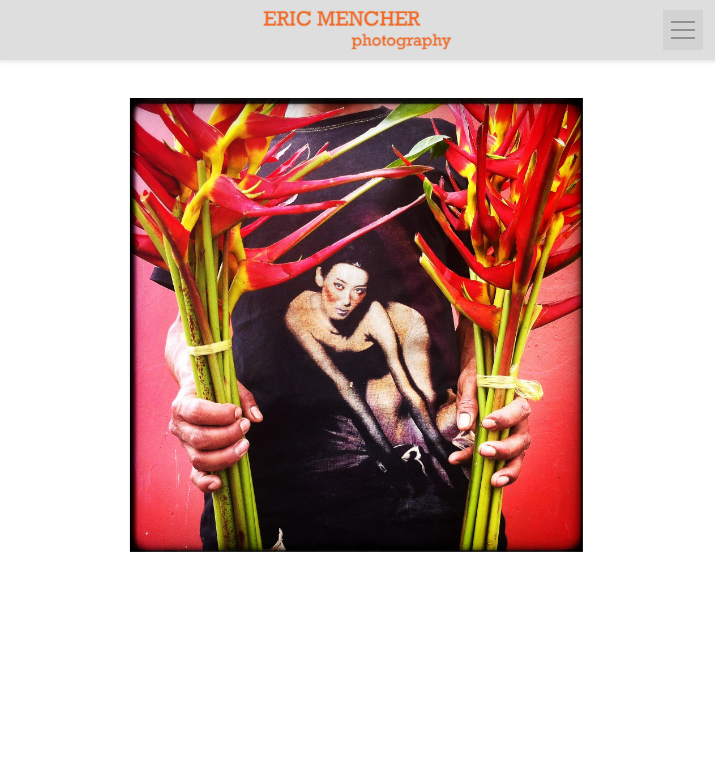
import math
import cairo


def round_path(ctx, x, y, w, h, r):
	ctx.new_sub_path()
	for i, (u, v) in enumerate([(x + w - r, y + h - r), (x + r, y + h - r), (x + r, y + r), (x + w - r, y + r)]):
		ctx.arc(u, v, r, i * math.pi / 2, (i + 1) * math.pi / 2)
	ctx.close_path()

def blur_box(ctx, x, y, w, h, r, blur, alpha):
	ctx.push_group_with_content(cairo.CONTENT_ALPHA)
	ctx.set_operator(cairo.OPERATOR_SOURCE)
	for i in range(15, -16, -2):
		e = blur * i / 6
		if min(w, h) + 2 * e > 0:
			ctx.set_source_rgba(0, 0, 0, alpha * math.erfc((i - 1) / 8.5) / 2)
			round_path(ctx, x - e, y - e, w + 2 * e, h + 2 * e, max(0, min(r + e + blur * .6, min(w, h) / 2 + e)))
			ctx.fill()
	ctx.mask(ctx.pop_group())

def paste(ctx, path, x, y, w, h):
	ctx.save()
	ctx.set_source_surface(cairo.ImageSurface.create_from_png(path), x, y)
	ctx.rectangle(x, y, w, h)
	ctx.fill()
	ctx.restore()

def draw(ctx):
	ctx.set_source_rgb(1, 1, 1)
	ctx.paint()
	ctx.set_source_rgb(0, 0, 0)
	blur_box(ctx, 0, 2, 715, 60, 0, 2, 0.1)
	ctx.set_source_rgb(0.871, 0.871, 0.871)
	ctx.rectangle(0, 0, 715, 60)
	ctx.fill()
	paste(ctx, 'media/1.png', 263, 10, 189, 40)
	ctx.set_source_rgb(0.827, 0.827, 0.827)
	ctx.rectangle(663, 10, 40, 40)
	ctx.fill()
	ctx.set_source_rgb(0.569, 0.569, 0.569)
	ctx.rectangle(671, 21, 24, 2)
	ctx.rectangle(671, 29, 24, 2)
	ctx.rectangle(671, 37, 24, 2)
	ctx.fill()
	paste(ctx, 'media/2.png', 129, 98, 454, 454)


surface = cairo.ImageSurface(cairo.FORMAT_RGB24, 715, 763)
ctx = cairo.Context(surface)
options = cairo.FontOptions()
options.set_hint_metrics(cairo.HINT_METRICS_OFF)
options.set_hint_style(cairo.HINT_STYLE_NONE)
ctx.set_font_options(options)
ctx.set_miter_limit(4)
draw(ctx)
surface.write_to_png('image.png')
